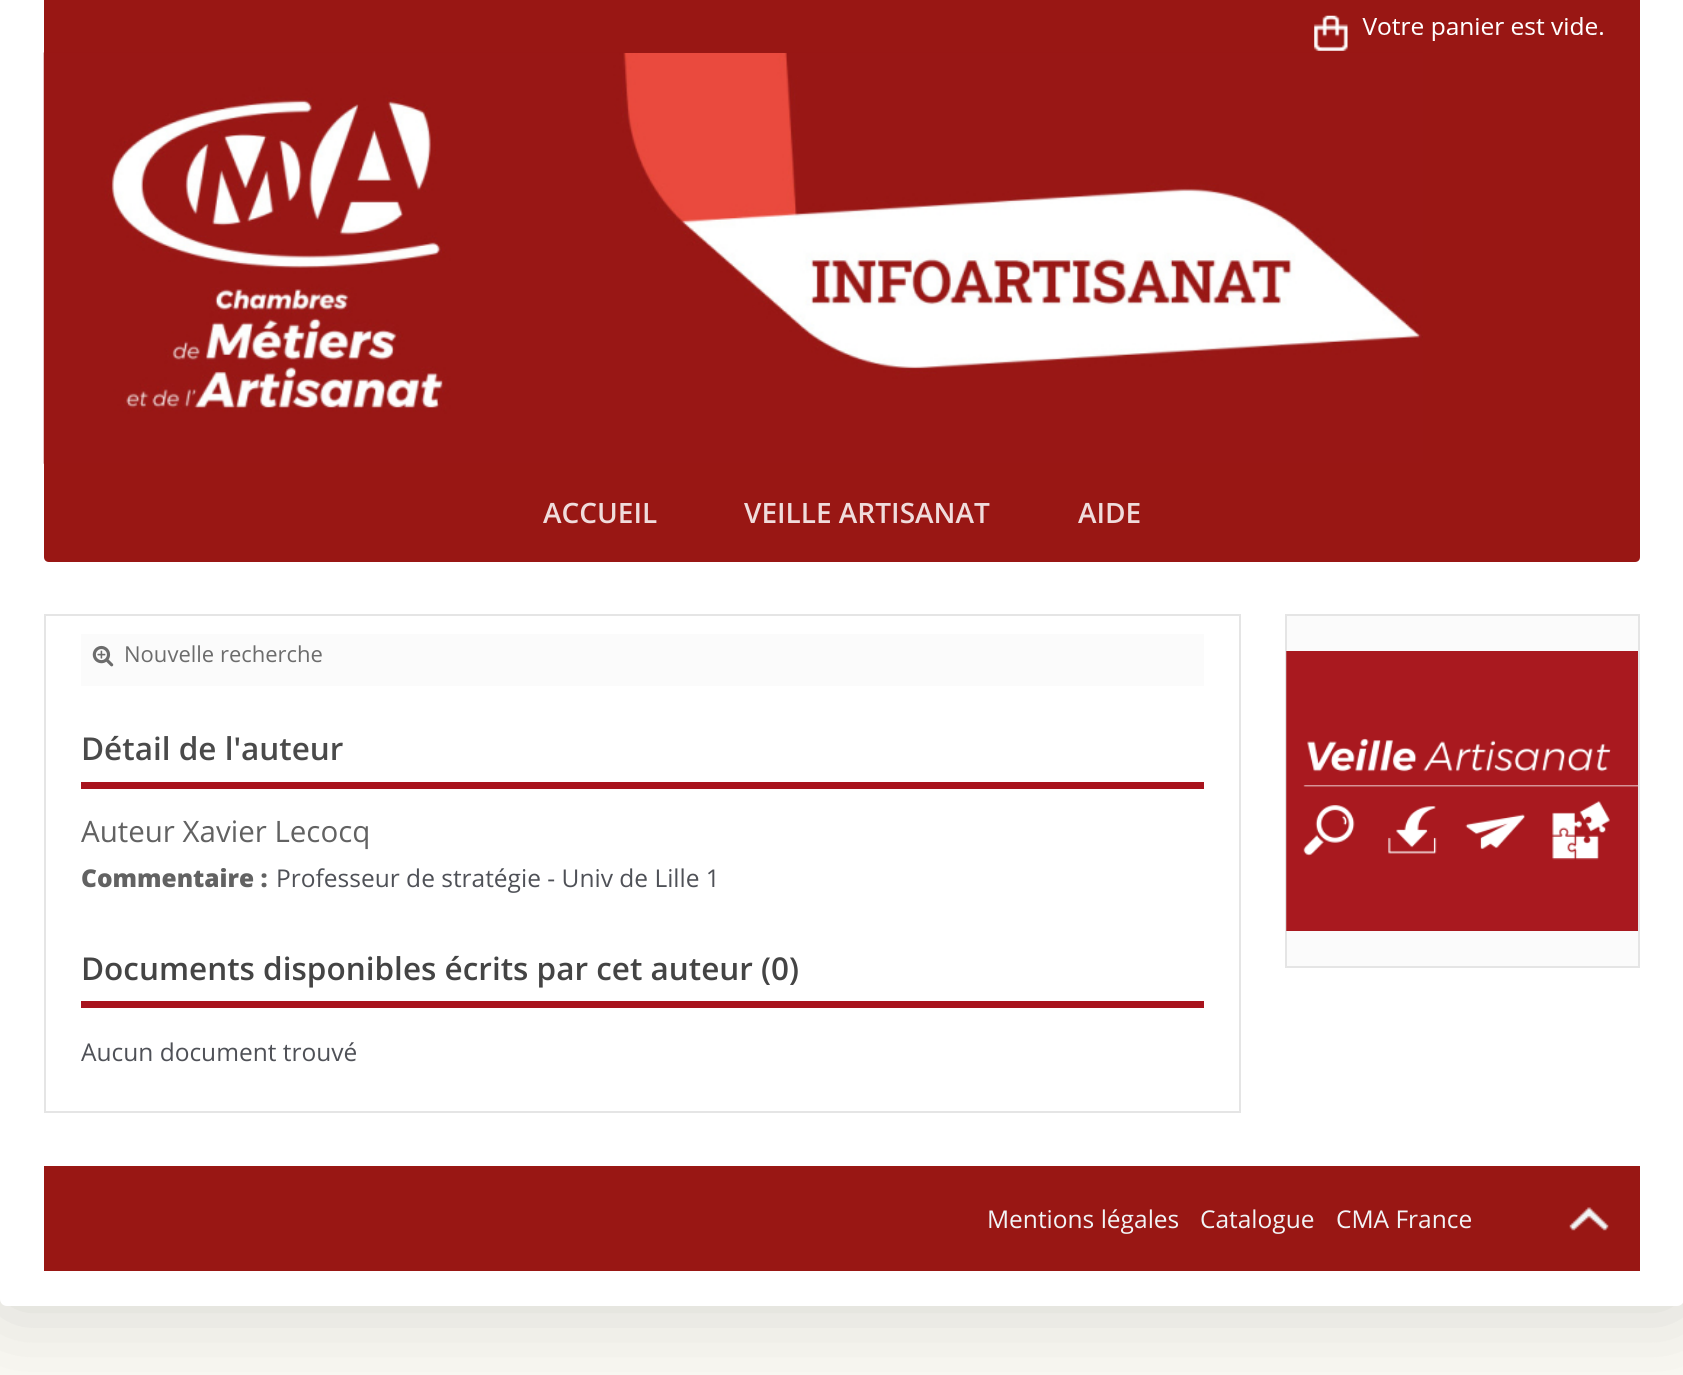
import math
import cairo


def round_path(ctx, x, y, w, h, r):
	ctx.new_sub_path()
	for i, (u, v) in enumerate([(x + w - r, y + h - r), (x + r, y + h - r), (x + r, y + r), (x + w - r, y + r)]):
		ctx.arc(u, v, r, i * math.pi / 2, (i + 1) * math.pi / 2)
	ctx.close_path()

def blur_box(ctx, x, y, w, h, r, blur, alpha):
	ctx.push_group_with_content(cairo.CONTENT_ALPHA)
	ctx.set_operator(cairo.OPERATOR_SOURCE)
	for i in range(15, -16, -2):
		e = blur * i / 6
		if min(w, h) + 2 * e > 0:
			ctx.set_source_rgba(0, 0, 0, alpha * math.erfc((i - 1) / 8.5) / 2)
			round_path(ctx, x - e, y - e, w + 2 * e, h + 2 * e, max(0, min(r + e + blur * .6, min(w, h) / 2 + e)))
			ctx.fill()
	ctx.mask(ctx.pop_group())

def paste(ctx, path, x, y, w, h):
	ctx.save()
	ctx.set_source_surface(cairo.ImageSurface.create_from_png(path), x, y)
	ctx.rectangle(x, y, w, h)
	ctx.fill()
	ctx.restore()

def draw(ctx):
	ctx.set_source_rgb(0.973, 0.969, 0.949)
	ctx.paint()
	ctx.set_source_rgb(0, 0, 0)
	blur_box(ctx, 0, 0, 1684, 1306, 7, 44, 0.15)
	ctx.set_source_rgb(1, 1, 1)
	ctx.new_path()
	ctx.move_to(0, 0)
	ctx.line_to(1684, 0)
	ctx.line_to(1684, 1299)
	ctx.curve_to(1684, 1303, 1681, 1306, 1677, 1306)
	ctx.line_to(7, 1306)
	ctx.curve_to(3, 1306, 0, 1303, 0, 1299)
	ctx.close_path()
	ctx.fill()
	ctx.set_source_rgb(0.6, 0.09, 0.082)
	ctx.new_path()
	ctx.move_to(44, 0)
	ctx.line_to(1640, 0)
	ctx.line_to(1640, 557)
	ctx.curve_to(1640, 560, 1638, 562, 1635, 562)
	ctx.line_to(49, 562)
	ctx.curve_to(46, 562, 44, 560, 44, 557)
	ctx.close_path()
	ctx.fill()
	paste(ctx, 'media/2.png', 43, 52, 1380, 412)
	ctx.rectangle(623, 52, 164, 1)
	ctx.fill()
	paste(ctx, 'media/1.png', 1314, 15, 289, 36)
	ctx.select_font_face('Open Sans SemiBold')
	ctx.set_font_size(28)
	ctx.set_source_rgb(0.941, 0.863, 0.863)
	for x, y, s in [
		(543, 523, 'ACCUEIL'),
		(744, 523, 'VEILLE ARTISANAT'),
		(1078, 523, 'AIDE'),
	]:
		ctx.move_to(x, y)
		ctx.show_text(s)
	ctx.rectangle(45, 615, 1195, 497)
	ctx.set_source_rgb(0.898, 0.898, 0.898)
	ctx.stroke()
	ctx.set_source_rgb(0.984, 0.984, 0.984)
	ctx.rectangle(81, 634, 1123, 52)
	ctx.fill()
	paste(ctx, 'media/3.png', 92, 645, 22, 22)
	ctx.select_font_face('Open Sans')
	ctx.set_font_size(22)
	ctx.set_source_rgb(0.424, 0.424, 0.424)
	ctx.move_to(124, 662)
	ctx.show_text('Nouvelle recherche')
	ctx.set_source_rgb(0.659, 0.075, 0.114)
	ctx.rectangle(81, 782, 1123, 7)
	ctx.fill()
	ctx.select_font_face('Open Sans SemiBold')
	ctx.set_font_size(31.5)
	ctx.set_source_rgb(0.29, 0.29, 0.29)
	ctx.move_to(81, 760)
	ctx.show_text('Détail de l\'auteur')
	ctx.select_font_face('Open Sans')
	ctx.set_font_size(29.5)
	ctx.set_source_rgb(0.384, 0.384, 0.384)
	ctx.move_to(81, 842)
	ctx.show_text('Auteur Xavier Lecocq')
	ctx.select_font_face('Open Sans ExtraBold')
	ctx.set_font_size(24.5)
	ctx.move_to(81, 887)
	ctx.show_text('Commentaire :')
	ctx.select_font_face('Open Sans')
	ctx.set_source_rgb(0.31, 0.318, 0.341)
	ctx.move_to(276, 887)
	ctx.show_text('Professeur de stratégie - Univ de Lille 1')
	ctx.set_source_rgb(0.659, 0.075, 0.114)
	ctx.rectangle(81, 1001, 1123, 7)
	ctx.fill()
	ctx.select_font_face('Open Sans SemiBold')
	ctx.set_font_size(31.5)
	ctx.set_source_rgb(0.267, 0.267, 0.267)
	ctx.move_to(81, 980)
	ctx.show_text('Documents disponibles écrits par cet auteur (0)')
	ctx.select_font_face('Open Sans')
	ctx.set_font_size(24.5)
	ctx.set_source_rgb(0.31, 0.318, 0.341)
	ctx.move_to(81, 1061)
	ctx.show_text('Aucun document trouvé')
	ctx.set_source_rgb(0.984, 0.984, 0.984)
	ctx.rectangle(1286, 615, 353, 352)
	ctx.fill_preserve()
	ctx.set_source_rgb(0.898, 0.898, 0.898)
	ctx.stroke()
	paste(ctx, 'media/4.png', 1286, 651, 352, 280)
	ctx.set_source_rgb(0.6, 0.09, 0.082)
	ctx.rectangle(44, 1166, 1596, 105)
	ctx.fill()
	ctx.set_source_rgb(0.949, 0.957, 0.961)
	for x, y, s in [
		(987, 1228, 'Mentions légales'),
		(1200, 1228, 'Catalogue'),
		(1336, 1228, 'CMA France'),
	]:
		ctx.move_to(x, y)
		ctx.show_text(s)
	paste(ctx, 'media/5.png', 1569, 1207, 40, 24)


surface = cairo.ImageSurface(cairo.FORMAT_RGB24, 1683, 1375)
ctx = cairo.Context(surface)
options = cairo.FontOptions()
options.set_hint_metrics(cairo.HINT_METRICS_OFF)
options.set_hint_style(cairo.HINT_STYLE_NONE)
ctx.set_font_options(options)
ctx.set_miter_limit(4)
draw(ctx)
surface.write_to_png('image.png')
